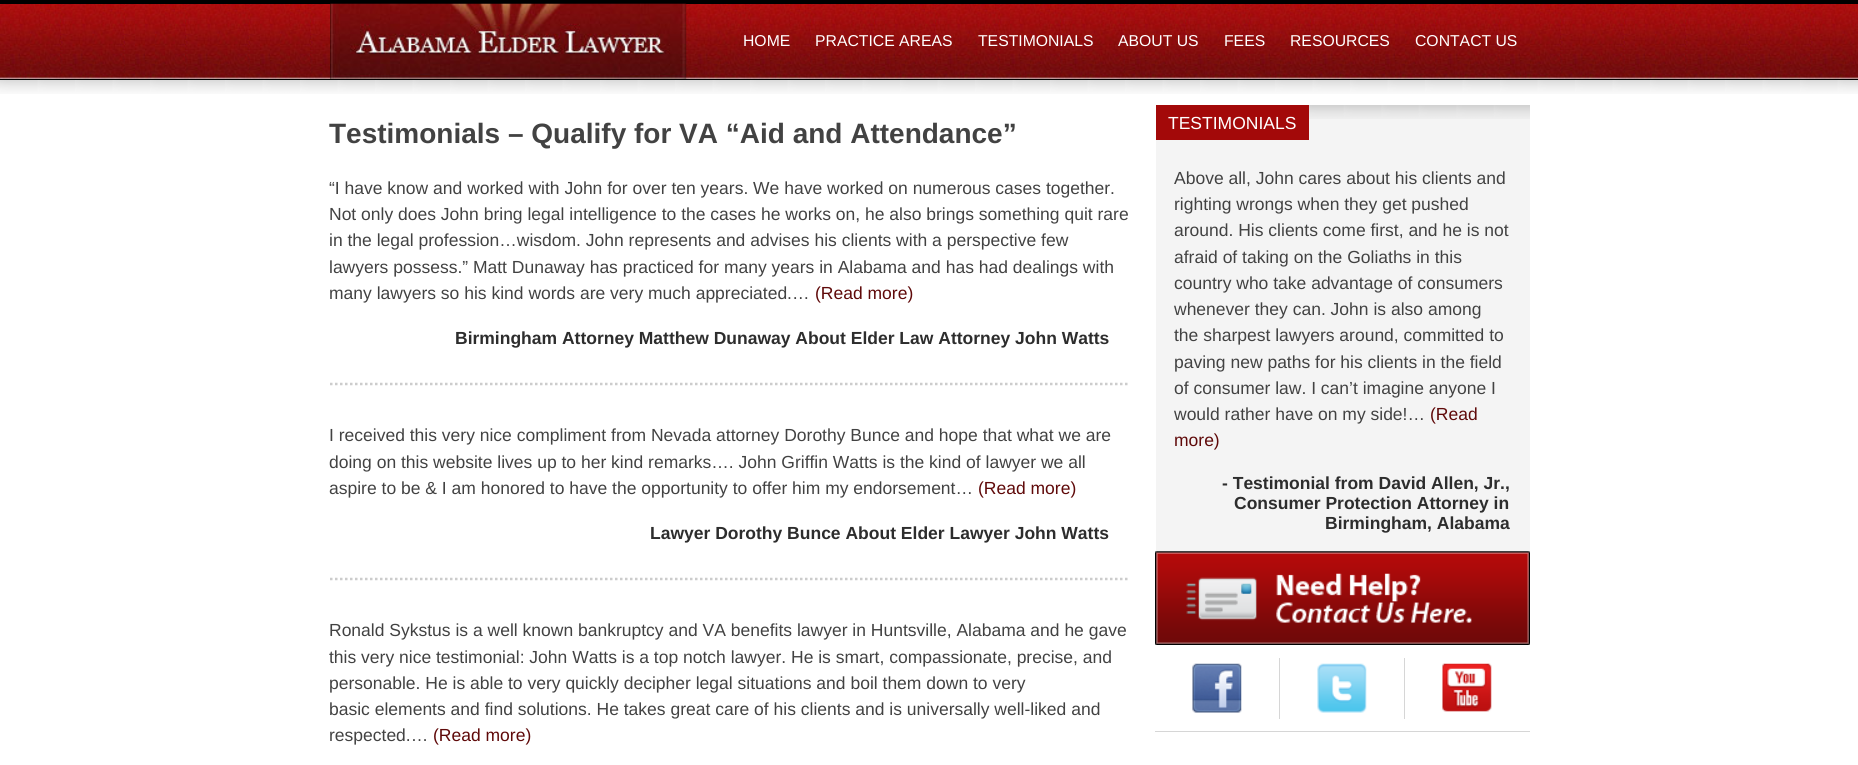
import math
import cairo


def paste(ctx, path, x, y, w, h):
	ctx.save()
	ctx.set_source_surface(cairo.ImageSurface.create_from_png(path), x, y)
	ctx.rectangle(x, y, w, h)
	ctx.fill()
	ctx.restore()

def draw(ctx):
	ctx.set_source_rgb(1, 1, 1)
	ctx.paint()
	paste(ctx, 'media/1.png', 0, 4, 1858, 75)
	ctx.set_source_rgb(0, 0, 0)
	ctx.rectangle(0, 0, 1858, 4)
	ctx.fill()
	ctx.rectangle(0, 79, 1858, 1)
	ctx.fill()
	paste(ctx, 'media/2.png', 330, 3, 357, 76)
	ctx.select_font_face('Liberation Sans')
	ctx.set_font_size(15.75)
	ctx.set_source_rgb(1, 1, 1)
	for x, y, s in [
		(743, 46, 'HOME'),
		(815, 46, 'PRACTICE AREAS'),
		(978, 46, 'TESTIMONIALS'),
		(1118, 46, 'ABOUT US'),
		(1224, 46, 'FEES'),
		(1290, 46, 'RESOURCES'),
		(1415, 46, 'CONTACT US'),
	]:
		ctx.move_to(x, y)
		ctx.show_text(s)
	paste(ctx, 'media/3.png', 0, 80, 1858, 14)
	ctx.select_font_face('Liberation Sans', cairo.FONT_SLANT_NORMAL, cairo.FONT_WEIGHT_BOLD)
	ctx.set_font_size(28)
	ctx.set_source_rgb(0.259, 0.259, 0.259)
	ctx.move_to(329, 143)
	ctx.show_text('Testimonials – Qualify for VA “Aid and Attendance”')
	ctx.select_font_face('Liberation Sans')
	ctx.set_font_size(17.5)
	for x, y, s in [
		(329, 194, '“I have know and worked with John for over ten years. We have worked on numerous cases together.'),
		(329, 220, 'Not only does John bring legal intelligence to the cases he works on, he also brings something quit rare'),
		(329, 246, 'in the legal profession…wisdom. John represents and advises his clients with a perspective few'),
		(329, 273, 'lawyers possess.” Matt Dunaway has practiced for many years in Alabama and has had dealings with'),
		(329, 299, 'many lawyers so his kind words are very much appreciated.…'),
	]:
		ctx.move_to(x, y)
		ctx.show_text(s)
	ctx.set_source_rgb(0.373, 0.039, 0.039)
	ctx.move_to(815, 299)
	ctx.show_text('(Read more)')
	ctx.select_font_face('Liberation Sans', cairo.FONT_SLANT_NORMAL, cairo.FONT_WEIGHT_BOLD)
	ctx.set_source_rgb(0.176, 0.176, 0.176)
	ctx.move_to(455, 344)
	ctx.show_text('Birmingham Attorney Matthew Dunaway About Elder Law Attorney John Watts')
	ctx.new_path()
	ctx.move_to(330, 384)
	ctx.line_to(1130, 384)
	ctx.set_source_rgb(0.8, 0.8, 0.8)
	ctx.set_line_width(2.5)
	ctx.set_dash([2.5, 2.5])
	ctx.stroke()
	ctx.select_font_face('Liberation Sans')
	ctx.set_source_rgb(0.259, 0.259, 0.259)
	for x, y, s in [
		(329, 441, 'I received this very nice compliment from Nevada attorney Dorothy Bunce and hope that what we are'),
		(329, 468, 'doing on this website lives up to her kind remarks…. John Griffin Watts is the kind of lawyer we all'),
		(329, 494, 'aspire to be & I am honored to have the opportunity to offer him my endorsement…'),
	]:
		ctx.move_to(x, y)
		ctx.show_text(s)
	ctx.set_source_rgb(0.373, 0.039, 0.039)
	ctx.move_to(978, 494)
	ctx.show_text('(Read more)')
	ctx.select_font_face('Liberation Sans', cairo.FONT_SLANT_NORMAL, cairo.FONT_WEIGHT_BOLD)
	ctx.set_source_rgb(0.176, 0.176, 0.176)
	ctx.move_to(650, 539)
	ctx.show_text('Lawyer Dorothy Bunce About Elder Lawyer John Watts')
	ctx.new_path()
	ctx.move_to(330, 579)
	ctx.line_to(1130, 579)
	ctx.set_source_rgb(0.8, 0.8, 0.8)
	ctx.stroke()
	ctx.select_font_face('Liberation Sans')
	ctx.set_source_rgb(0.259, 0.259, 0.259)
	for x, y, s in [
		(329, 636, 'Ronald Sykstus is a well known bankruptcy and VA benefits lawyer in Huntsville, Alabama and he gave'),
		(329, 663, 'this very nice testimonial: John Watts is a top notch lawyer. He is smart, compassionate, precise, and'),
		(329, 689, 'personable. He is able to very quickly decipher legal situations and boil them down to very'),
		(329, 715, 'basic elements and find solutions. He takes great care of his clients and is universally well-liked and'),
		(329, 741, 'respected.…'),
	]:
		ctx.move_to(x, y)
		ctx.show_text(s)
	ctx.set_source_rgb(0.373, 0.039, 0.039)
	ctx.move_to(433, 741)
	ctx.show_text('(Read more)')
	ctx.set_source_rgb(0.957, 0.957, 0.957)
	ctx.rectangle(1156, 105, 374, 446)
	ctx.fill()
	paste(ctx, 'media/4.png', 1309, 105, 221, 14)
	ctx.set_source_rgb(0.639, 0.039, 0.039)
	ctx.rectangle(1156, 105, 153, 35)
	ctx.fill()
	ctx.set_source_rgb(1, 1, 1)
	ctx.move_to(1168, 129)
	ctx.show_text('TESTIMONIALS')
	ctx.set_source_rgb(0.259, 0.259, 0.259)
	for x, y, s in [
		(1174, 184, 'Above all, John cares about his clients and'),
		(1174, 210, 'righting wrongs when they get pushed'),
		(1174, 236, 'around. His clients come first, and he is not'),
		(1174, 263, 'afraid of taking on the Goliaths in this'),
		(1174, 289, 'country who take advantage of consumers'),
		(1174, 315, 'whenever they can. John is also among'),
		(1174, 341, 'the sharpest lawyers around, committed to'),
		(1174, 368, 'paving new paths for his clients in the field'),
		(1174, 394, 'of consumer law. I can’t imagine anyone I'),
		(1174, 420, 'would rather have on my side!…'),
	]:
		ctx.move_to(x, y)
		ctx.show_text(s)
	ctx.set_source_rgb(0.373, 0.039, 0.039)
	ctx.move_to(1430, 420)
	ctx.show_text('(Read')
	ctx.move_to(1174, 446)
	ctx.show_text('more)')
	ctx.select_font_face('Liberation Sans', cairo.FONT_SLANT_NORMAL, cairo.FONT_WEIGHT_BOLD)
	ctx.set_source_rgb(0.176, 0.176, 0.176)
	for x, y, s in [
		(1222, 489, '- Testimonial from David Allen, Jr.,'),
		(1234, 509, 'Consumer Protection Attorney in'),
		(1325, 529, 'Birmingham, Alabama'),
	]:
		ctx.move_to(x, y)
		ctx.show_text(s)
	paste(ctx, 'media/5.png', 1155, 551, 375, 94)
	ctx.set_source_rgb(0.839, 0.839, 0.839)
	ctx.rectangle(1155, 731, 375, 1)
	ctx.fill()
	paste(ctx, 'media/6.png', 1192, 663, 50, 50)
	ctx.rectangle(1279, 658, 1, 61)
	ctx.fill()
	paste(ctx, 'media/7.png', 1317, 663, 50, 50)
	ctx.rectangle(1404, 658, 1, 61)
	ctx.fill()
	paste(ctx, 'media/8.png', 1442, 663, 50, 49)


surface = cairo.ImageSurface(cairo.FORMAT_RGB24, 1858, 765)
ctx = cairo.Context(surface)
options = cairo.FontOptions()
options.set_hint_metrics(cairo.HINT_METRICS_OFF)
options.set_hint_style(cairo.HINT_STYLE_NONE)
ctx.set_font_options(options)
ctx.set_miter_limit(4)
draw(ctx)
surface.write_to_png('image.png')
